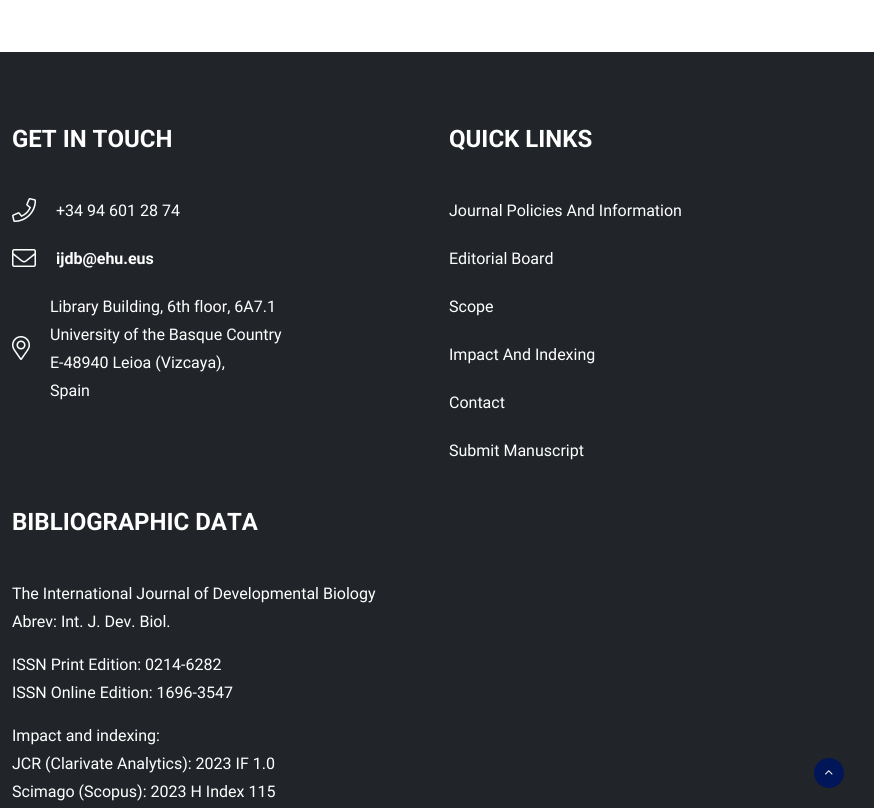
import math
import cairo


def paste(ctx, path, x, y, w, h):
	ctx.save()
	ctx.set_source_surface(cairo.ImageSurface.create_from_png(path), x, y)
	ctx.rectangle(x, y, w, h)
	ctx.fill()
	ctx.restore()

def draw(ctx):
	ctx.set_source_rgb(1, 1, 1)
	ctx.paint()
	ctx.set_source_rgb(0.129, 0.145, 0.161)
	ctx.rectangle(0, 52, 874, 756)
	ctx.fill()
	ctx.select_font_face('Roboto', cairo.FONT_SLANT_NORMAL, cairo.FONT_WEIGHT_BOLD)
	ctx.set_font_size(24)
	ctx.set_source_rgb(1, 1, 1)
	ctx.move_to(12, 147)
	ctx.show_text('GET IN TOUCH')
	paste(ctx, 'media/1.png', 12, 198, 24, 24)
	ctx.select_font_face('Roboto')
	ctx.set_font_size(16)
	ctx.move_to(56, 216)
	ctx.show_text('+34 94 601 28 74')
	paste(ctx, 'media/2.png', 12, 249, 24, 18)
	ctx.select_font_face('Roboto', cairo.FONT_SLANT_NORMAL, cairo.FONT_WEIGHT_BOLD)
	ctx.move_to(56, 264)
	ctx.show_text('ijdb@ehu.eus')
	paste(ctx, 'media/3.png', 12, 336, 18, 24)
	ctx.select_font_face('Roboto')
	for x, y, s in [
		(50, 312, 'Library Building, 6th floor, 6A7.1'),
		(50, 340, 'University of the Basque Country'),
		(50, 368, 'E-48940 Leioa (Vizcaya),'),
		(50, 396, 'Spain'),
	]:
		ctx.move_to(x, y)
		ctx.show_text(s)
	ctx.select_font_face('Roboto', cairo.FONT_SLANT_NORMAL, cairo.FONT_WEIGHT_BOLD)
	ctx.set_font_size(24)
	ctx.move_to(449, 147)
	ctx.show_text('QUICK LINKS')
	ctx.select_font_face('Roboto')
	ctx.set_font_size(16)
	for x, y, s in [
		(449, 216, 'Journal Policies And Information'),
		(449, 264, 'Editorial Board'),
		(449, 312, 'Scope'),
		(449, 360, 'Impact And Indexing'),
		(449, 408, 'Contact'),
		(449, 456, 'Submit Manuscript'),
	]:
		ctx.move_to(x, y)
		ctx.show_text(s)
	ctx.select_font_face('Roboto', cairo.FONT_SLANT_NORMAL, cairo.FONT_WEIGHT_BOLD)
	ctx.set_font_size(24)
	ctx.move_to(12, 530)
	ctx.show_text('BIBLIOGRAPHIC DATA')
	ctx.select_font_face('Roboto')
	ctx.set_font_size(16)
	for x, y, s in [
		(12, 599, 'The International Journal of Developmental Biology'),
		(12, 627, 'Abrev: Int. J. Dev. Biol.'),
		(12, 670, 'ISSN Print Edition: 0214-6282'),
		(12, 698, 'ISSN Online Edition: 1696-3547'),
		(12, 741, 'Impact and indexing:'),
		(12, 769, 'JCR (Clarivate Analytics): 2023 IF 1.0'),
		(12, 797, 'Scimago (Scopus): 2023 H Index 115'),
	]:
		ctx.move_to(x, y)
		ctx.show_text(s)
	ctx.set_source_rgb(0, 0.086, 0.349)
	ctx.new_path()
	ctx.arc(829, 773, 15, 0, 2 * math.pi)
	ctx.fill()
	paste(ctx, 'media/4.png', 825, 770, 8, 5)


surface = cairo.ImageSurface(cairo.FORMAT_RGB24, 874, 808)
ctx = cairo.Context(surface)
options = cairo.FontOptions()
options.set_hint_metrics(cairo.HINT_METRICS_OFF)
options.set_hint_style(cairo.HINT_STYLE_NONE)
ctx.set_font_options(options)
ctx.set_miter_limit(4)
draw(ctx)
surface.write_to_png('image.png')
